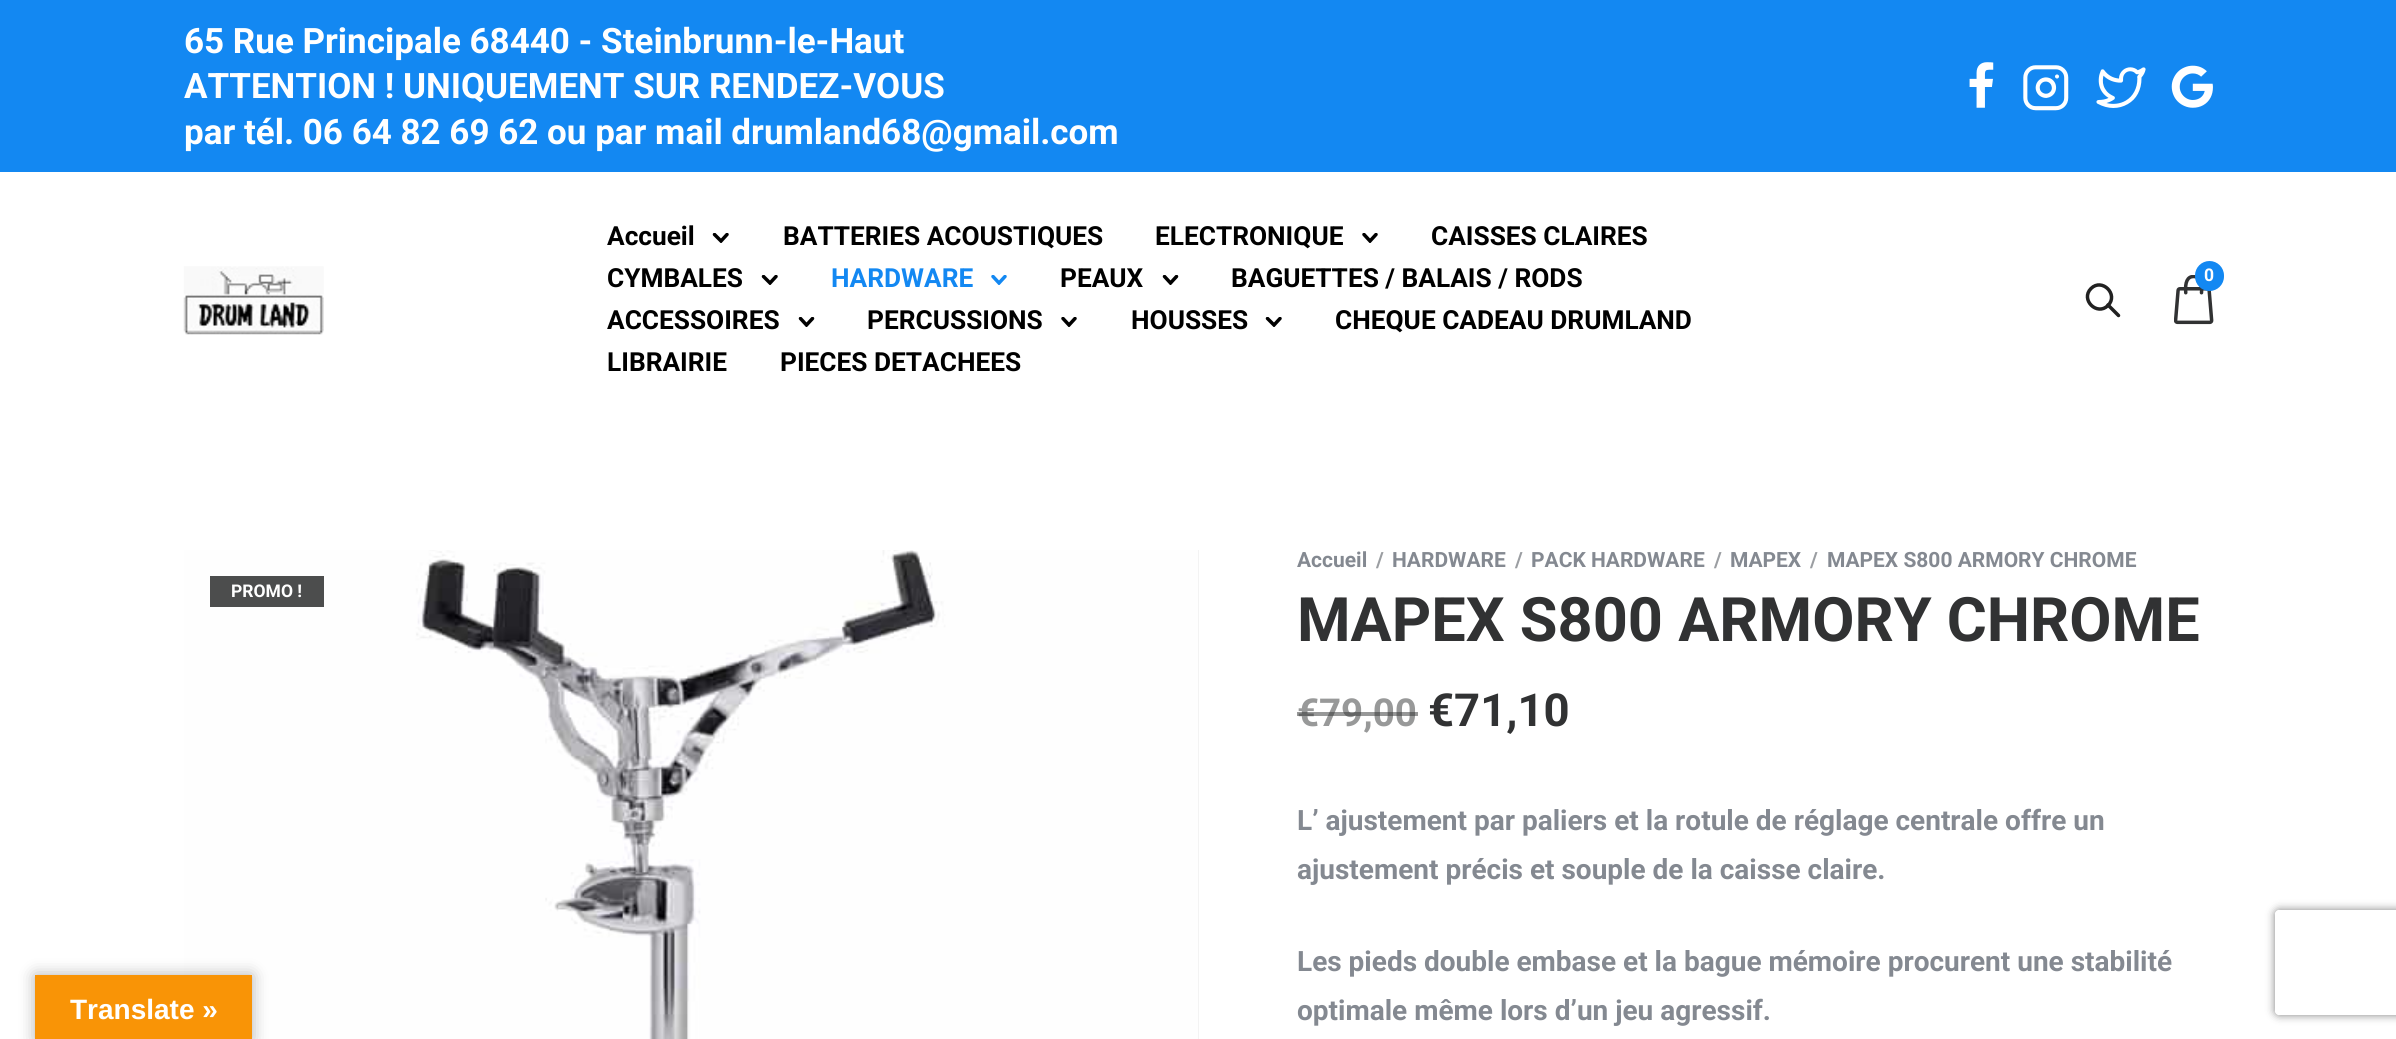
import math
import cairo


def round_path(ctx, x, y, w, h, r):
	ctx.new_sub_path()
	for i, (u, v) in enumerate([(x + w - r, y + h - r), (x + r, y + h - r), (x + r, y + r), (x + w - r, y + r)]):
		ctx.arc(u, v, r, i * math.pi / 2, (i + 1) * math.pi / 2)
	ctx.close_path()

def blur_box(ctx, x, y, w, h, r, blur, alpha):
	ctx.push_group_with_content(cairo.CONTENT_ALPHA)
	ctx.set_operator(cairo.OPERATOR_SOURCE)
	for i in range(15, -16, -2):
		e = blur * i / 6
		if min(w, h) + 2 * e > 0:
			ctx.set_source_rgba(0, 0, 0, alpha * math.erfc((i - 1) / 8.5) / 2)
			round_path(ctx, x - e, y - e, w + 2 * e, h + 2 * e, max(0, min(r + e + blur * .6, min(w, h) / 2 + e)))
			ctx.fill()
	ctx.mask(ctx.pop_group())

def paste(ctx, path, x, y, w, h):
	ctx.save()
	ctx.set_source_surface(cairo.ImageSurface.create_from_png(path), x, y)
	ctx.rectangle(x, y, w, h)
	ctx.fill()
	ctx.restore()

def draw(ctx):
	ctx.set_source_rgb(1, 1, 1)
	ctx.paint()
	ctx.set_source_rgb(0.078, 0.533, 0.949)
	ctx.rectangle(0, 0, 2396, 172)
	ctx.fill()
	ctx.select_font_face('Roboto', cairo.FONT_SLANT_NORMAL, cairo.FONT_WEIGHT_BOLD)
	ctx.set_font_size(35)
	ctx.set_source_rgb(1, 1, 1)
	for x, y, s in [
		(184, 53, '65 Rue Principale 68440 - Steinbrunn-le-Haut'),
		(184, 98, 'ATTENTION ! UNIQUEMENT SUR RENDEZ-VOUS'),
		(184, 144, 'par tél. 06 64 82 69 62 ou par mail drumland68@gmail.com'),
	]:
		ctx.move_to(x, y)
		ctx.show_text(s)
	paste(ctx, 'media/1.png', 1969, 62, 25, 46)
	paste(ctx, 'media/2.png', 2023, 65, 46, 46)
	paste(ctx, 'media/3.png', 2096, 67, 50, 41)
	paste(ctx, 'media/4.png', 2171, 65, 42, 43)
	paste(ctx, 'media/5.png', 183, 266, 141, 69)
	ctx.set_font_size(26.25)
	ctx.set_source_rgb(0, 0, 0)
	ctx.move_to(607, 245)
	ctx.show_text('Accueil')
	ctx.save()
	ctx.rectangle(712, 233, 18, 10)
	ctx.clip()
	ctx.new_path()
	ctx.move_to(727, 234.5)
	ctx.line_to(721, 241)
	ctx.line_to(714.5, 234.5)
	ctx.set_line_width(3.5)
	ctx.set_line_cap(cairo.LINE_CAP_ROUND)
	ctx.stroke()
	ctx.restore()
	ctx.move_to(783, 245)
	ctx.show_text('BATTERIES ACOUSTIQUES')
	ctx.move_to(1155, 245)
	ctx.show_text('ELECTRONIQUE')
	ctx.save()
	ctx.rectangle(1362, 233, 17, 10)
	ctx.clip()
	ctx.new_path()
	ctx.move_to(1376, 234.5)
	ctx.line_to(1370, 241)
	ctx.line_to(1364, 234.5)
	ctx.set_line_width(3.5)
	ctx.set_line_cap(cairo.LINE_CAP_ROUND)
	ctx.stroke()
	ctx.restore()
	ctx.move_to(1431, 245)
	ctx.show_text('CAISSES CLAIRES')
	ctx.move_to(607, 287)
	ctx.show_text('CYMBALES')
	ctx.save()
	ctx.rectangle(761, 275, 18, 10)
	ctx.clip()
	ctx.new_path()
	ctx.move_to(776, 276.5)
	ctx.line_to(770, 283)
	ctx.line_to(763.5, 276.5)
	ctx.set_line_width(3.5)
	ctx.set_line_cap(cairo.LINE_CAP_ROUND)
	ctx.stroke()
	ctx.restore()
	ctx.set_source_rgb(0.078, 0.533, 0.949)
	ctx.move_to(831, 287)
	ctx.show_text('HARDWARE')
	ctx.save()
	ctx.rectangle(991, 275, 17, 10)
	ctx.clip()
	ctx.new_path()
	ctx.move_to(1005, 276.5)
	ctx.line_to(999, 283)
	ctx.line_to(993, 276.5)
	ctx.set_line_width(3.5)
	ctx.set_line_cap(cairo.LINE_CAP_ROUND)
	ctx.stroke()
	ctx.restore()
	ctx.set_source_rgb(0, 0, 0)
	ctx.move_to(1060, 287)
	ctx.show_text('PEAUX')
	ctx.save()
	ctx.rectangle(1162, 275, 18, 10)
	ctx.clip()
	ctx.new_path()
	ctx.move_to(1176.5, 276.5)
	ctx.line_to(1170.5, 283)
	ctx.line_to(1164.5, 276.5)
	ctx.set_line_width(3.5)
	ctx.set_line_cap(cairo.LINE_CAP_ROUND)
	ctx.stroke()
	ctx.restore()
	ctx.move_to(1231, 287)
	ctx.show_text('BAGUETTES / BALAIS / RODS')
	ctx.move_to(607, 329)
	ctx.show_text('ACCESSOIRES')
	ctx.save()
	ctx.rectangle(798, 317, 18, 10)
	ctx.clip()
	ctx.new_path()
	ctx.move_to(812.5, 318.5)
	ctx.line_to(806.5, 325)
	ctx.line_to(800.5, 318.5)
	ctx.set_line_width(3.5)
	ctx.set_line_cap(cairo.LINE_CAP_ROUND)
	ctx.stroke()
	ctx.restore()
	ctx.move_to(867, 329)
	ctx.show_text('PERCUSSIONS')
	ctx.save()
	ctx.rectangle(1061, 317, 17, 10)
	ctx.clip()
	ctx.new_path()
	ctx.move_to(1075, 318.5)
	ctx.line_to(1069, 325)
	ctx.line_to(1063, 318.5)
	ctx.set_line_width(3.5)
	ctx.set_line_cap(cairo.LINE_CAP_ROUND)
	ctx.stroke()
	ctx.restore()
	ctx.move_to(1131, 329)
	ctx.show_text('HOUSSES')
	ctx.save()
	ctx.rectangle(1265, 317, 18, 10)
	ctx.clip()
	ctx.new_path()
	ctx.move_to(1280, 318.5)
	ctx.line_to(1274, 325)
	ctx.line_to(1267.5, 318.5)
	ctx.set_line_width(3.5)
	ctx.set_line_cap(cairo.LINE_CAP_ROUND)
	ctx.stroke()
	ctx.restore()
	for x, y, s in [
		(1335, 329, 'CHEQUE CADEAU DRUMLAND'),
		(607, 371, 'LIBRAIRIE'),
		(780, 371, 'PIECES DETACHEES'),
	]:
		ctx.move_to(x, y)
		ctx.show_text(s)
	paste(ctx, 'media/6.png', 2174, 275, 40, 50)
	ctx.set_source_rgb(0.078, 0.533, 0.949)
	round_path(ctx, 2195, 261, 29, 30, 14.5)
	ctx.fill()
	ctx.set_font_size(17.5)
	ctx.set_source_rgb(1, 1, 1)
	ctx.move_to(2204, 281)
	ctx.show_text('0')
	ctx.new_path()
	ctx.move_to(2091, 288.5)
	ctx.curve_to(2102, 277.5, 2119, 294.5, 2108, 305.5)
	ctx.curve_to(2097, 316.5, 2080, 299.5, 2091, 288.5)
	ctx.close_path()
	ctx.set_source_rgb(0.129, 0.129, 0.129)
	ctx.set_line_width(3.5)
	ctx.stroke()
	ctx.new_path()
	ctx.move_to(2108, 305)
	ctx.line_to(2118.5, 315.5)
	ctx.set_line_cap(cairo.LINE_CAP_ROUND)
	ctx.stroke()
	ctx.set_source_rgb(0.898, 0.898, 0.898)
	ctx.rectangle(1198, 550, 1, 489)
	ctx.fill()
	paste(ctx, 'media/7.png', 184, 550, 1015, 489)
	ctx.set_source_rgb(0, 0, 0)
	blur_box(ctx, 35, 975, 217, 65, 0, 8, 0.3)
	ctx.set_source_rgb(0.973, 0.58, 0.024)
	ctx.rectangle(35, 975, 217, 64)
	ctx.fill()
	ctx.select_font_face('Liberation Sans', cairo.FONT_SLANT_NORMAL, cairo.FONT_WEIGHT_BOLD)
	ctx.set_font_size(28)
	ctx.set_source_rgb(1, 1, 1)
	ctx.move_to(70, 1019)
	ctx.show_text('Translate »')
	ctx.set_source_rgb(0.298, 0.302, 0.302)
	ctx.rectangle(210, 576, 114, 31)
	ctx.fill()
	ctx.select_font_face('Roboto', cairo.FONT_SLANT_NORMAL, cairo.FONT_WEIGHT_BOLD)
	ctx.set_font_size(17.5)
	ctx.set_source_rgb(1, 1, 1)
	ctx.move_to(231, 597)
	ctx.show_text('PROMO !')
	ctx.set_font_size(21)
	ctx.set_source_rgb(0.518, 0.537, 0.569)
	ctx.move_to(1297, 567)
	ctx.show_text('Accueil')
	ctx.set_source_rgb(0.608, 0.62, 0.635)
	ctx.move_to(1376, 567)
	ctx.show_text('/')
	ctx.set_source_rgb(0.518, 0.537, 0.569)
	ctx.move_to(1392, 567)
	ctx.show_text('HARDWARE')
	ctx.set_source_rgb(0.608, 0.62, 0.635)
	ctx.move_to(1515, 567)
	ctx.show_text('/')
	ctx.set_source_rgb(0.518, 0.537, 0.569)
	ctx.move_to(1531, 567)
	ctx.show_text('PACK HARDWARE')
	ctx.set_source_rgb(0.608, 0.62, 0.635)
	ctx.move_to(1714, 567)
	ctx.show_text('/')
	ctx.set_source_rgb(0.518, 0.537, 0.569)
	ctx.move_to(1730, 567)
	ctx.show_text('MAPEX')
	ctx.set_source_rgb(0.608, 0.62, 0.635)
	ctx.move_to(1810, 567)
	ctx.show_text('/')
	ctx.set_source_rgb(0.518, 0.537, 0.569)
	ctx.move_to(1827, 567)
	ctx.show_text('MAPEX S800 ARMORY CHROME')
	ctx.set_font_size(61.25)
	ctx.set_source_rgb(0.192, 0.196, 0.2)
	ctx.move_to(1297, 641)
	ctx.show_text('MAPEX S800 ARMORY CHROME')
	ctx.set_font_size(38.5)
	ctx.set_source_rgb(0.596, 0.6, 0.6)
	ctx.move_to(1297, 726)
	ctx.show_text('€')
	ctx.set_source_rgba(0.192, 0.196, 0.2, 0.5)
	ctx.rectangle(1297, 712, 23, 4)
	ctx.fill()
	ctx.set_source_rgb(0.596, 0.6, 0.6)
	ctx.move_to(1319, 726)
	ctx.show_text('79,00')
	ctx.set_source_rgba(0.192, 0.196, 0.2, 0.5)
	ctx.rectangle(1320, 712, 98, 4)
	ctx.fill()
	ctx.set_font_size(45.5)
	ctx.set_source_rgb(0.192, 0.196, 0.2)
	ctx.move_to(1428, 726)
	ctx.show_text('€71,10')
	ctx.set_font_size(28)
	ctx.set_source_rgb(0.518, 0.537, 0.569)
	for x, y, s in [
		(1297, 830, 'L’ ajustement par paliers et la rotule de réglage centrale offre un'),
		(1297, 879, 'ajustement précis et souple de la caisse claire.'),
		(1297, 971, 'Les pieds double embase et la bague mémoire procurent une stabilité'),
		(1297, 1020, 'optimale même lors d’un jeu agressif.'),
	]:
		ctx.move_to(x, y)
		ctx.show_text(s)
	ctx.save()
	ctx.set_fill_rule(cairo.FILL_RULE_EVEN_ODD)
	ctx.new_path()
	ctx.move_to(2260, 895)
	ctx.line_to(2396, 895)
	ctx.line_to(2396, 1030)
	ctx.line_to(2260, 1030)
	ctx.close_path()
	ctx.move_to(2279, 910)
	ctx.line_to(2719, 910)
	ctx.curve_to(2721, 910, 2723, 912, 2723, 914)
	ctx.line_to(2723, 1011)
	ctx.curve_to(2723, 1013, 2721, 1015, 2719, 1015)
	ctx.line_to(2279, 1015)
	ctx.curve_to(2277, 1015, 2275, 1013, 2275, 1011)
	ctx.line_to(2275, 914)
	ctx.curve_to(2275, 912, 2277, 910, 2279, 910)
	ctx.close_path()
	ctx.clip()
	ctx.set_source_rgb(0.502, 0.502, 0.502)
	blur_box(ctx, 2275, 910, 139, 105, 4, 4.5, 1)
	ctx.restore()


surface = cairo.ImageSurface(cairo.FORMAT_RGB24, 2396, 1039)
ctx = cairo.Context(surface)
options = cairo.FontOptions()
options.set_hint_metrics(cairo.HINT_METRICS_OFF)
options.set_hint_style(cairo.HINT_STYLE_NONE)
ctx.set_font_options(options)
ctx.set_miter_limit(4)
draw(ctx)
surface.write_to_png('image.png')
